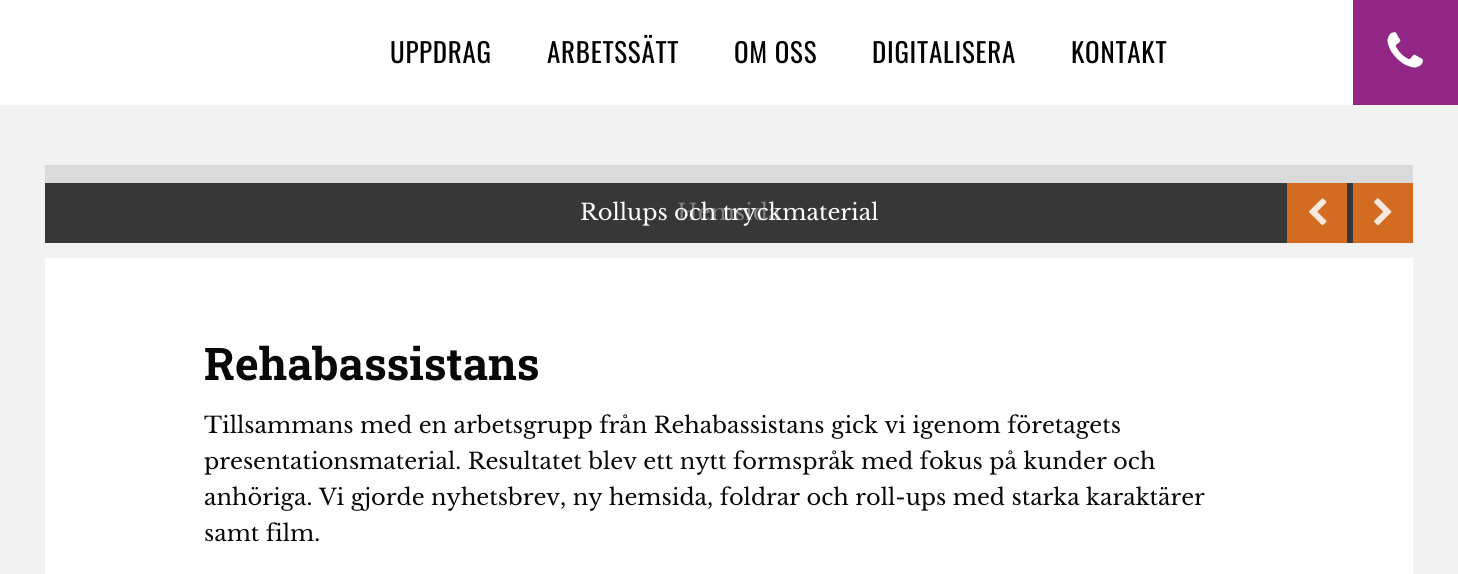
import math
import cairo


def write_spaced(ctx, x, y, s, letter, word):
	ctx.move_to(x, y)
	for ch in s:
		ctx.show_text(ch)
		ctx.rel_move_to(letter + word * (ch == ' '), 0)

def paste(ctx, path, x, y, w, h):
	ctx.save()
	ctx.set_source_surface(cairo.ImageSurface.create_from_png(path), x, y)
	ctx.rectangle(x, y, w, h)
	ctx.fill()
	ctx.restore()

def draw(ctx):
	ctx.set_source_rgb(0.949, 0.949, 0.949)
	ctx.paint()
	ctx.set_source_rgb(1, 1, 1)
	ctx.rectangle(0, 0, 1353, 105)
	ctx.fill()
	ctx.select_font_face('Oswald')
	ctx.set_font_size(27)
	ctx.set_source_rgb(0, 0, 0)
	for x, y, s in [
		(390, 63, 'UPPDRAG'),
		(547, 63, 'ARBETSSÄTT'),
		(734, 63, 'OM OSS'),
		(872, 63, 'DIGITALISERA'),
		(1071, 63, 'KONTAKT'),
	]:
		write_spaced(ctx, x, y, s, 0.75, 0)
	ctx.set_source_rgb(0.569, 0.149, 0.518)
	ctx.rectangle(1353, 0, 105, 105)
	ctx.fill()
	paste(ctx, 'media/1.png', 1387, 32, 36, 36)
	ctx.set_source_rgb(0.859, 0.855, 0.855)
	ctx.rectangle(45, 165, 1368, 18)
	ctx.fill()
	ctx.set_source_rgb(0.216, 0.216, 0.216)
	ctx.rectangle(45, 183, 1308, 60)
	ctx.fill()
	ctx.select_font_face('Libre Baskerville')
	ctx.set_font_size(22.5)
	ctx.set_source_rgb(0.502, 0.502, 0.502)
	ctx.move_to(677, 220)
	ctx.show_text('Hemsida')
	ctx.set_source_rgb(1, 1, 1)
	ctx.move_to(580, 220)
	ctx.show_text('Rollups och tryckmaterial')
	ctx.set_source_rgb(0.827, 0.424, 0.129)
	ctx.rectangle(1287, 183, 60, 60)
	ctx.fill()
	paste(ctx, 'media/2.png', 1309, 198, 18, 28)
	ctx.rectangle(1353, 183, 60, 60)
	ctx.fill()
	paste(ctx, 'media/3.png', 1374, 198, 18, 28)
	ctx.set_source_rgb(1, 1, 1)
	ctx.rectangle(45, 258, 1368, 316)
	ctx.fill()
	ctx.select_font_face('Roboto Slab', cairo.FONT_SLANT_NORMAL, cairo.FONT_WEIGHT_BOLD)
	ctx.set_font_size(45)
	ctx.set_source_rgb(0.039, 0.039, 0.039)
	ctx.move_to(204, 380)
	ctx.show_text('Rehabassistans')
	ctx.select_font_face('Libre Baskerville')
	ctx.set_font_size(22.5)
	for x, y, s in [
		(204, 433, 'Tillsammans med en arbetsgrupp från Rehabassistans gick vi igenom företagets'),
		(204, 469, 'presentationsmaterial. Resultatet blev ett nytt formspråk med fokus på kunder och'),
		(204, 505, 'anhöriga. Vi gjorde nyhetsbrev, ny hemsida, foldrar och roll-ups med starka karaktärer'),
		(204, 541, 'samt film.'),
	]:
		ctx.move_to(x, y)
		ctx.show_text(s)


surface = cairo.ImageSurface(cairo.FORMAT_RGB24, 1458, 574)
ctx = cairo.Context(surface)
options = cairo.FontOptions()
options.set_hint_metrics(cairo.HINT_METRICS_OFF)
options.set_hint_style(cairo.HINT_STYLE_NONE)
ctx.set_font_options(options)
ctx.set_miter_limit(4)
draw(ctx)
surface.write_to_png('image.png')
